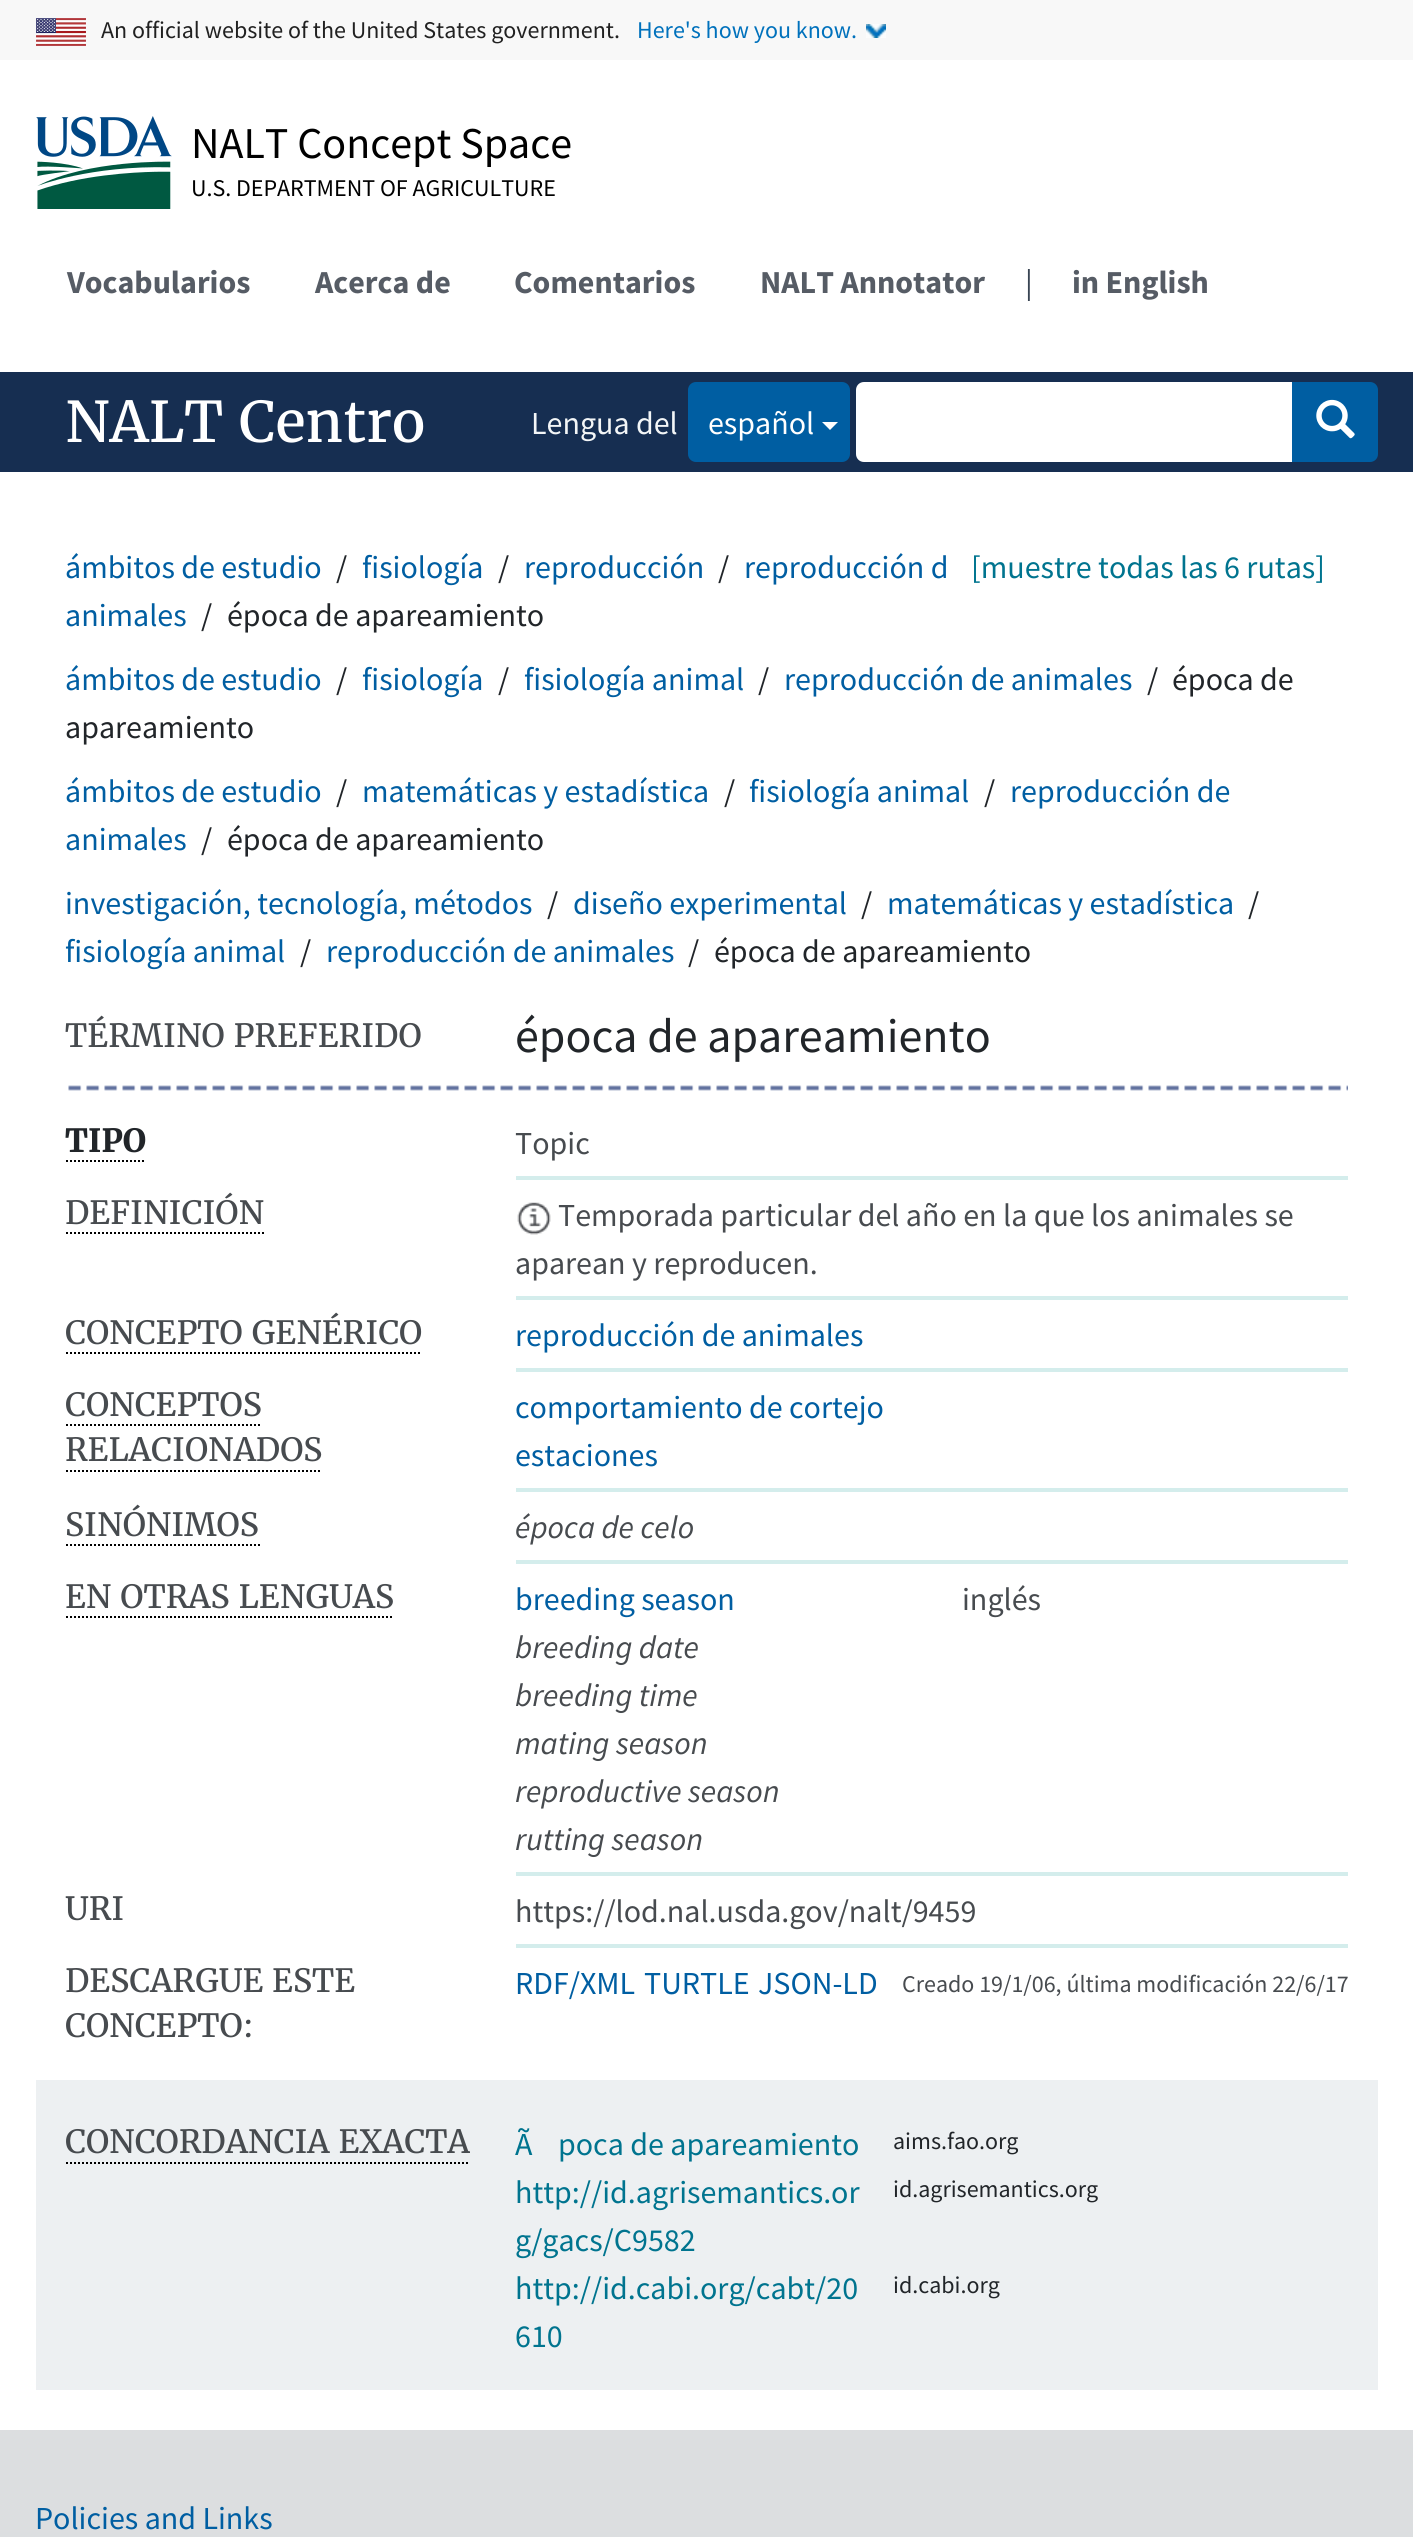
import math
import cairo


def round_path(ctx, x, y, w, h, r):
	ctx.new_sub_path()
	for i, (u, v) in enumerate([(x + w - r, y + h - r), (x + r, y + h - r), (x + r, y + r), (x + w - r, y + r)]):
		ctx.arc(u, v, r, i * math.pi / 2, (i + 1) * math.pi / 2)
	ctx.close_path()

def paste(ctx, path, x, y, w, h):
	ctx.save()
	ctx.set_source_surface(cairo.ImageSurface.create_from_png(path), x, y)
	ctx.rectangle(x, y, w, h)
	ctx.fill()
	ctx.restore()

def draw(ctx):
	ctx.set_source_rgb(1, 1, 1)
	ctx.paint()
	ctx.set_source_rgb(0.969, 0.969, 0.969)
	ctx.rectangle(0, 0, 1413, 60)
	ctx.fill()
	paste(ctx, 'media/1.png', 36, 18, 50, 28)
	ctx.select_font_face('Source Sans Pro')
	ctx.set_font_size(24)
	ctx.set_source_rgb(0.129, 0.129, 0.129)
	ctx.move_to(101, 38)
	ctx.show_text('An official website of the United States government.')
	paste(ctx, 'media/2.png', 866, 24, 20, 14)
	ctx.set_source_rgb(0, 0.443, 0.737)
	ctx.move_to(637, 38)
	ctx.show_text('Here\'s how you know.')
	paste(ctx, 'media/3.png', 36, 116, 136, 93)
	ctx.set_font_size(44)
	ctx.set_source_rgb(0, 0, 0)
	ctx.move_to(191, 158)
	ctx.show_text('NALT Concept Space')
	ctx.set_font_size(24)
	ctx.move_to(191, 196)
	ctx.show_text('U.S. DEPARTMENT OF AGRICULTURE')
	ctx.select_font_face('Source Sans Pro', cairo.FONT_SLANT_NORMAL, cairo.FONT_WEIGHT_BOLD)
	ctx.set_font_size(32)
	ctx.set_source_rgb(0.337, 0.361, 0.396)
	for x, y, s in [
		(67, 293, 'Vocabularios'),
		(315, 293, 'Acerca de'),
		(514, 293, 'Comentarios'),
		(760, 293, 'NALT Annotator'),
	]:
		ctx.move_to(x, y)
		ctx.show_text(s)
	ctx.select_font_face('Source Sans Pro')
	ctx.set_source_rgb(0.224, 0.271, 0.329)
	ctx.move_to(1025, 293)
	ctx.show_text('|')
	ctx.select_font_face('Source Sans Pro', cairo.FONT_SLANT_NORMAL, cairo.FONT_WEIGHT_BOLD)
	ctx.set_source_rgb(0.337, 0.361, 0.396)
	ctx.move_to(1072, 293)
	ctx.show_text('in English')
	ctx.set_source_rgb(0.086, 0.18, 0.318)
	ctx.rectangle(0, 372, 1413, 100)
	ctx.fill()
	ctx.select_font_face('Merriweather')
	ctx.set_font_size(56)
	ctx.set_source_rgb(1, 1, 1)
	ctx.move_to(65, 442)
	ctx.show_text('NALT Centro')
	ctx.select_font_face('Source Sans Pro')
	ctx.set_font_size(32)
	ctx.set_source_rgb(0.953, 0.961, 0.965)
	ctx.move_to(531, 434)
	ctx.show_text('Lengua del')
	ctx.set_source_rgb(0, 0.369, 0.635)
	round_path(ctx, 688, 382, 162, 80, 8)
	ctx.fill()
	ctx.set_source_rgb(1, 1, 1)
	ctx.move_to(708, 434)
	ctx.show_text('español')
	ctx.new_path()
	ctx.move_to(822, 422)
	ctx.line_to(838, 422)
	ctx.line_to(830, 430)
	ctx.close_path()
	ctx.fill()
	ctx.new_path()
	ctx.move_to(864, 382)
	ctx.line_to(1294, 382)
	ctx.line_to(1294, 462)
	ctx.line_to(864, 462)
	ctx.curve_to(859.5, 462, 856, 458.5, 856, 454)
	ctx.line_to(856, 390)
	ctx.curve_to(856, 385.5, 859.5, 382, 864, 382)
	ctx.close_path()
	ctx.fill()
	ctx.set_source_rgb(0, 0.369, 0.635)
	ctx.new_path()
	ctx.move_to(1292, 382)
	ctx.line_to(1370, 382)
	ctx.curve_to(1374.5, 382, 1378, 385.5, 1378, 390)
	ctx.line_to(1378, 454)
	ctx.curve_to(1378, 458.5, 1374.5, 462, 1370, 462)
	ctx.line_to(1292, 462)
	ctx.close_path()
	ctx.fill()
	paste(ctx, 'media/4.png', 1316, 399, 39, 40)
	ctx.move_to(65, 578)
	ctx.show_text('ámbitos de estudio')
	ctx.set_source_rgb(0.129, 0.145, 0.161)
	ctx.move_to(336, 578)
	ctx.show_text('/')
	ctx.set_source_rgb(0, 0.369, 0.635)
	ctx.move_to(362, 578)
	ctx.show_text('fisiología')
	ctx.set_source_rgb(0.129, 0.145, 0.161)
	ctx.move_to(498, 578)
	ctx.show_text('/')
	ctx.set_source_rgb(0, 0.369, 0.635)
	ctx.move_to(524, 578)
	ctx.show_text('reproducción')
	ctx.set_source_rgb(0.129, 0.145, 0.161)
	ctx.move_to(718, 578)
	ctx.show_text('/')
	ctx.set_source_rgb(0, 0.369, 0.635)
	ctx.move_to(744, 578)
	ctx.show_text('reproducción d')
	ctx.move_to(65, 626)
	ctx.show_text('animales')
	ctx.set_source_rgb(0.129, 0.145, 0.161)
	ctx.move_to(201, 626)
	ctx.show_text('/')
	ctx.move_to(227, 626)
	ctx.show_text('época de apareamiento')
	ctx.set_source_rgb(0, 0.455, 0.561)
	ctx.move_to(971, 578)
	ctx.show_text('[muestre todas las 6 rutas]')
	ctx.set_source_rgb(0, 0.369, 0.635)
	ctx.move_to(65, 690)
	ctx.show_text('ámbitos de estudio')
	ctx.set_source_rgb(0.129, 0.145, 0.161)
	ctx.move_to(336, 690)
	ctx.show_text('/')
	ctx.set_source_rgb(0, 0.369, 0.635)
	ctx.move_to(362, 690)
	ctx.show_text('fisiología')
	ctx.set_source_rgb(0.129, 0.145, 0.161)
	ctx.move_to(498, 690)
	ctx.show_text('/')
	ctx.set_source_rgb(0, 0.369, 0.635)
	ctx.move_to(524, 690)
	ctx.show_text('fisiología animal')
	ctx.set_source_rgb(0.129, 0.145, 0.161)
	ctx.move_to(758, 690)
	ctx.show_text('/')
	ctx.set_source_rgb(0, 0.369, 0.635)
	ctx.move_to(784, 690)
	ctx.show_text('reproducción de animales')
	ctx.set_source_rgb(0.129, 0.145, 0.161)
	for x, y, s in [
		(1147, 690, '/'),
		(1172, 690, 'época de'),
		(65, 738, 'apareamiento'),
	]:
		ctx.move_to(x, y)
		ctx.show_text(s)
	ctx.set_source_rgb(0, 0.369, 0.635)
	ctx.move_to(65, 802)
	ctx.show_text('ámbitos de estudio')
	ctx.set_source_rgb(0.129, 0.145, 0.161)
	ctx.move_to(336, 802)
	ctx.show_text('/')
	ctx.set_source_rgb(0, 0.369, 0.635)
	ctx.move_to(362, 802)
	ctx.show_text('matemáticas y estadística')
	ctx.set_source_rgb(0.129, 0.145, 0.161)
	ctx.move_to(724, 802)
	ctx.show_text('/')
	ctx.set_source_rgb(0, 0.369, 0.635)
	ctx.move_to(749, 802)
	ctx.show_text('fisiología animal')
	ctx.set_source_rgb(0.129, 0.145, 0.161)
	ctx.move_to(984, 802)
	ctx.show_text('/')
	ctx.set_source_rgb(0, 0.369, 0.635)
	ctx.move_to(1010, 802)
	ctx.show_text('reproducción de')
	ctx.move_to(65, 850)
	ctx.show_text('animales')
	ctx.set_source_rgb(0.129, 0.145, 0.161)
	ctx.move_to(201, 850)
	ctx.show_text('/')
	ctx.move_to(227, 850)
	ctx.show_text('época de apareamiento')
	ctx.set_source_rgb(0, 0.369, 0.635)
	ctx.move_to(65, 914)
	ctx.show_text('investigación, tecnología, métodos')
	ctx.set_source_rgb(0.129, 0.145, 0.161)
	ctx.move_to(547, 914)
	ctx.show_text('/')
	ctx.set_source_rgb(0, 0.369, 0.635)
	ctx.move_to(573, 914)
	ctx.show_text('diseño experimental')
	ctx.set_source_rgb(0.129, 0.145, 0.161)
	ctx.move_to(861, 914)
	ctx.show_text('/')
	ctx.set_source_rgb(0, 0.369, 0.635)
	ctx.move_to(887, 914)
	ctx.show_text('matemáticas y estadística')
	ctx.set_source_rgb(0.129, 0.145, 0.161)
	ctx.move_to(1248, 914)
	ctx.show_text('/')
	ctx.set_source_rgb(0, 0.369, 0.635)
	ctx.move_to(65, 962)
	ctx.show_text('fisiología animal')
	ctx.set_source_rgb(0.129, 0.145, 0.161)
	ctx.move_to(300, 962)
	ctx.show_text('/')
	ctx.set_source_rgb(0, 0.369, 0.635)
	ctx.move_to(326, 962)
	ctx.show_text('reproducción de animales')
	ctx.set_source_rgb(0.129, 0.145, 0.161)
	ctx.move_to(688, 962)
	ctx.show_text('/')
	ctx.move_to(714, 962)
	ctx.show_text('época de apareamiento')
	ctx.select_font_face('Merriweather')
	ctx.set_source_rgb(0.278, 0.294, 0.31)
	ctx.move_to(65, 1047)
	ctx.show_text('TÉRMINO PREFERIDO')
	ctx.select_font_face('Source Sans Pro')
	ctx.set_font_size(48)
	ctx.set_source_rgb(0.129, 0.145, 0.161)
	ctx.move_to(515, 1052)
	ctx.show_text('época de apareamiento')
	paste(ctx, 'media/5.png', 68, 1085, 1280, 6)
	ctx.select_font_face('Merriweather', cairo.FONT_SLANT_NORMAL, cairo.FONT_WEIGHT_BOLD)
	ctx.set_font_size(32)
	ctx.move_to(65, 1152)
	ctx.show_text('TIPO')
	ctx.new_path()
	ctx.move_to(66, 1161)
	ctx.line_to(146, 1161)
	ctx.set_source_rgb(0, 0, 0)
	ctx.set_dash([2, 2])
	ctx.stroke()
	ctx.set_source_rgb(0.831, 0.929, 0.922)
	ctx.rectangle(516, 1176, 832, 4)
	ctx.fill()
	ctx.select_font_face('Source Sans Pro')
	ctx.set_source_rgb(0.278, 0.294, 0.31)
	ctx.move_to(515, 1154)
	ctx.show_text('Topic')
	ctx.select_font_face('Merriweather')
	ctx.move_to(65, 1224)
	ctx.show_text('DEFINICIÓN')
	ctx.new_path()
	ctx.move_to(66, 1233)
	ctx.line_to(264, 1233)
	ctx.set_source_rgb(0, 0, 0)
	ctx.stroke()
	ctx.set_source_rgb(0.831, 0.929, 0.922)
	ctx.rectangle(516, 1296, 832, 4)
	ctx.fill()
	paste(ctx, 'media/6.png', 517, 1202, 34, 33)
	ctx.select_font_face('Source Sans Pro')
	ctx.set_source_rgb(0.278, 0.294, 0.31)
	ctx.move_to(558, 1226)
	ctx.show_text('Temporada particular del año en la que los animales se')
	ctx.move_to(515, 1274)
	ctx.show_text('aparean y reproducen.')
	ctx.select_font_face('Merriweather')
	ctx.move_to(65, 1344)
	ctx.show_text('CONCEPTO GENÉRICO')
	ctx.new_path()
	ctx.move_to(66, 1353)
	ctx.line_to(422, 1353)
	ctx.set_source_rgb(0, 0, 0)
	ctx.stroke()
	ctx.set_source_rgb(0.831, 0.929, 0.922)
	ctx.rectangle(516, 1368, 832, 4)
	ctx.fill()
	ctx.select_font_face('Source Sans Pro')
	ctx.set_source_rgb(0, 0.369, 0.635)
	ctx.move_to(515, 1346)
	ctx.show_text('reproducción de animales')
	ctx.select_font_face('Merriweather')
	ctx.set_source_rgb(0.278, 0.294, 0.31)
	ctx.move_to(65, 1416)
	ctx.show_text('CONCEPTOS')
	ctx.new_path()
	ctx.move_to(66, 1425)
	ctx.line_to(262, 1425)
	ctx.set_source_rgb(0, 0, 0)
	ctx.stroke()
	ctx.set_source_rgb(0.278, 0.294, 0.31)
	ctx.move_to(65, 1461)
	ctx.show_text('RELACIONADOS')
	ctx.new_path()
	ctx.move_to(66, 1471)
	ctx.line_to(322, 1471)
	ctx.set_source_rgb(0, 0, 0)
	ctx.stroke()
	ctx.set_source_rgb(0.831, 0.929, 0.922)
	ctx.rectangle(516, 1488, 832, 4)
	ctx.fill()
	ctx.select_font_face('Source Sans Pro')
	ctx.set_source_rgb(0, 0.369, 0.635)
	ctx.move_to(515, 1418)
	ctx.show_text('comportamiento de cortejo')
	ctx.move_to(515, 1466)
	ctx.show_text('estaciones')
	ctx.select_font_face('Merriweather')
	ctx.set_source_rgb(0.278, 0.294, 0.31)
	ctx.move_to(65, 1536)
	ctx.show_text('SINÓNIMOS')
	ctx.new_path()
	ctx.move_to(66, 1545)
	ctx.line_to(260, 1545)
	ctx.set_source_rgb(0, 0, 0)
	ctx.stroke()
	ctx.set_source_rgb(0.831, 0.929, 0.922)
	ctx.rectangle(516, 1560, 832, 4)
	ctx.fill()
	ctx.select_font_face('Source Sans Pro', cairo.FONT_SLANT_ITALIC)
	ctx.set_source_rgb(0.278, 0.294, 0.31)
	ctx.move_to(515, 1538)
	ctx.show_text('época de celo')
	ctx.select_font_face('Merriweather')
	ctx.move_to(65, 1608)
	ctx.show_text('EN OTRAS LENGUAS')
	ctx.new_path()
	ctx.move_to(66, 1617)
	ctx.line_to(394, 1617)
	ctx.set_source_rgb(0, 0, 0)
	ctx.stroke()
	ctx.set_source_rgb(0.831, 0.929, 0.922)
	ctx.rectangle(516, 1872, 832, 4)
	ctx.fill()
	ctx.select_font_face('Source Sans Pro')
	ctx.set_source_rgb(0, 0.369, 0.635)
	ctx.move_to(515, 1610)
	ctx.show_text('breeding season')
	ctx.set_source_rgb(0.278, 0.294, 0.31)
	ctx.move_to(962, 1610)
	ctx.show_text('inglés')
	ctx.select_font_face('Source Sans Pro', cairo.FONT_SLANT_ITALIC)
	for x, y, s in [
		(515, 1658, 'breeding date'),
		(515, 1706, 'breeding time'),
		(515, 1754, 'mating season'),
		(515, 1802, 'reproductive season'),
		(515, 1850, 'rutting season'),
	]:
		ctx.move_to(x, y)
		ctx.show_text(s)
	ctx.select_font_face('Merriweather')
	ctx.move_to(65, 1920)
	ctx.show_text('URI')
	ctx.set_source_rgb(0.831, 0.929, 0.922)
	ctx.rectangle(516, 1944, 832, 4)
	ctx.fill()
	ctx.select_font_face('Source Sans Pro')
	ctx.set_source_rgb(0.278, 0.294, 0.31)
	ctx.move_to(515, 1922)
	ctx.show_text('https://lod.nal.usda.gov/nalt/9459')
	ctx.select_font_face('Merriweather')
	ctx.move_to(65, 1992)
	ctx.show_text('DESCARGUE ESTE')
	ctx.move_to(65, 2037)
	ctx.show_text('CONCEPTO:')
	ctx.select_font_face('Source Sans Pro')
	ctx.set_source_rgb(0, 0.369, 0.635)
	for x, y, s in [
		(515, 1994, 'RDF/XML'),
		(644, 1994, 'TURTLE'),
		(758, 1994, 'JSON-LD'),
	]:
		ctx.move_to(x, y)
		ctx.show_text(s)
	ctx.set_font_size(24)
	ctx.set_source_rgb(0.278, 0.294, 0.31)
	ctx.move_to(902, 1992)
	ctx.show_text('Creado 19/1/06, última modificación 22/6/17')
	ctx.set_source_rgb(0.929, 0.941, 0.949)
	ctx.rectangle(36, 2080, 1342, 310)
	ctx.fill()
	ctx.select_font_face('Merriweather')
	ctx.set_font_size(32)
	ctx.set_source_rgb(0.278, 0.294, 0.31)
	ctx.move_to(65, 2153)
	ctx.show_text('CONCORDANCIA EXACTA')
	ctx.new_path()
	ctx.move_to(66, 2163)
	ctx.line_to(470, 2163)
	ctx.set_source_rgb(0, 0, 0)
	ctx.stroke()
	ctx.select_font_face('Source Sans Pro')
	ctx.set_source_rgb(0, 0.455, 0.561)
	ctx.move_to(515, 2155)
	ctx.show_text('Ã')
	ctx.move_to(558, 2155)
	ctx.show_text('poca de apareamiento')
	ctx.set_font_size(24)
	ctx.set_source_rgb(0.129, 0.145, 0.161)
	ctx.move_to(893, 2149)
	ctx.show_text('aims.fao.org')
	ctx.set_font_size(32)
	ctx.set_source_rgb(0, 0.455, 0.561)
	ctx.move_to(515, 2203)
	ctx.show_text('http://id.agrisemantics.or')
	ctx.move_to(515, 2251)
	ctx.show_text('g/gacs/C9582')
	ctx.set_font_size(24)
	ctx.set_source_rgb(0.129, 0.145, 0.161)
	ctx.move_to(893, 2197)
	ctx.show_text('id.agrisemantics.org')
	ctx.set_font_size(32)
	ctx.set_source_rgb(0, 0.455, 0.561)
	ctx.move_to(515, 2299)
	ctx.show_text('http://id.cabi.org/cabt/20')
	ctx.move_to(515, 2347)
	ctx.show_text('610')
	ctx.set_font_size(24)
	ctx.set_source_rgb(0.129, 0.145, 0.161)
	ctx.move_to(893, 2293)
	ctx.show_text('id.cabi.org')
	ctx.set_source_rgb(0.863, 0.871, 0.878)
	ctx.rectangle(0, 2430, 1413, 107)
	ctx.fill()
	ctx.set_font_size(32)
	ctx.set_source_rgb(0, 0.369, 0.635)
	ctx.move_to(35, 2529)
	ctx.show_text('Policies and Links')


surface = cairo.ImageSurface(cairo.FORMAT_RGB24, 1413, 2537)
ctx = cairo.Context(surface)
options = cairo.FontOptions()
options.set_hint_metrics(cairo.HINT_METRICS_OFF)
options.set_hint_style(cairo.HINT_STYLE_NONE)
ctx.set_font_options(options)
ctx.set_miter_limit(4)
draw(ctx)
surface.write_to_png('image.png')
